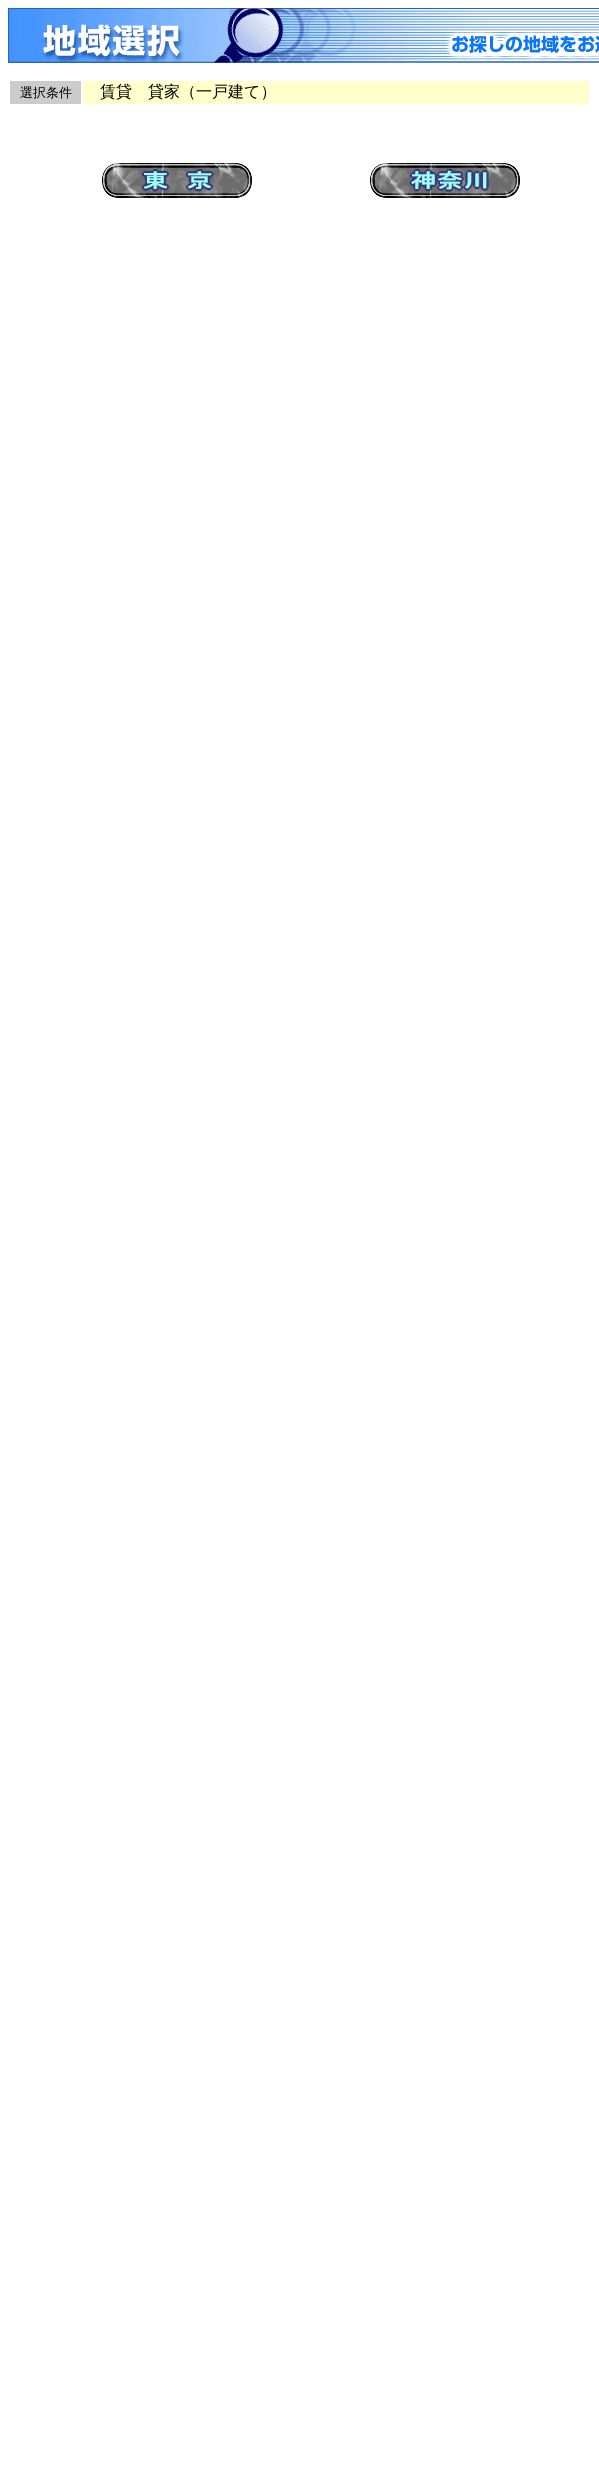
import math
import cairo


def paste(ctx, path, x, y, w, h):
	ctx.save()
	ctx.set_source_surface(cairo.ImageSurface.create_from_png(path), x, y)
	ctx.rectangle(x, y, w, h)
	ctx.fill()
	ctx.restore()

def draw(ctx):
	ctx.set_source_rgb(1, 1, 1)
	ctx.paint()
	paste(ctx, 'media/1.png', 8, 8, 591, 55)
	ctx.set_source_rgb(0.8, 0.8, 0.8)
	ctx.rectangle(10, 81, 71, 23)
	ctx.fill()
	ctx.select_font_face('WenQuanYi Zen Hei Medium')
	ctx.set_font_size(13)
	ctx.set_source_rgb(0, 0, 0)
	ctx.move_to(20, 97)
	ctx.show_text('選択条件')
	ctx.set_source_rgb(1, 1, 0.8)
	ctx.rectangle(83, 81, 506, 23)
	ctx.fill()
	ctx.set_font_size(16)
	ctx.set_source_rgb(0, 0, 0)
	ctx.move_to(100, 97)
	ctx.show_text('賃貸　貸家（一戸建て）')
	paste(ctx, 'media/2.png', 102, 163, 150, 35)
	paste(ctx, 'media/3.png', 370, 163, 150, 35)


surface = cairo.ImageSurface(cairo.FORMAT_RGB24, 599, 2476)
ctx = cairo.Context(surface)
options = cairo.FontOptions()
options.set_hint_metrics(cairo.HINT_METRICS_OFF)
options.set_hint_style(cairo.HINT_STYLE_NONE)
ctx.set_font_options(options)
ctx.set_miter_limit(4)
draw(ctx)
surface.write_to_png('image.png')
